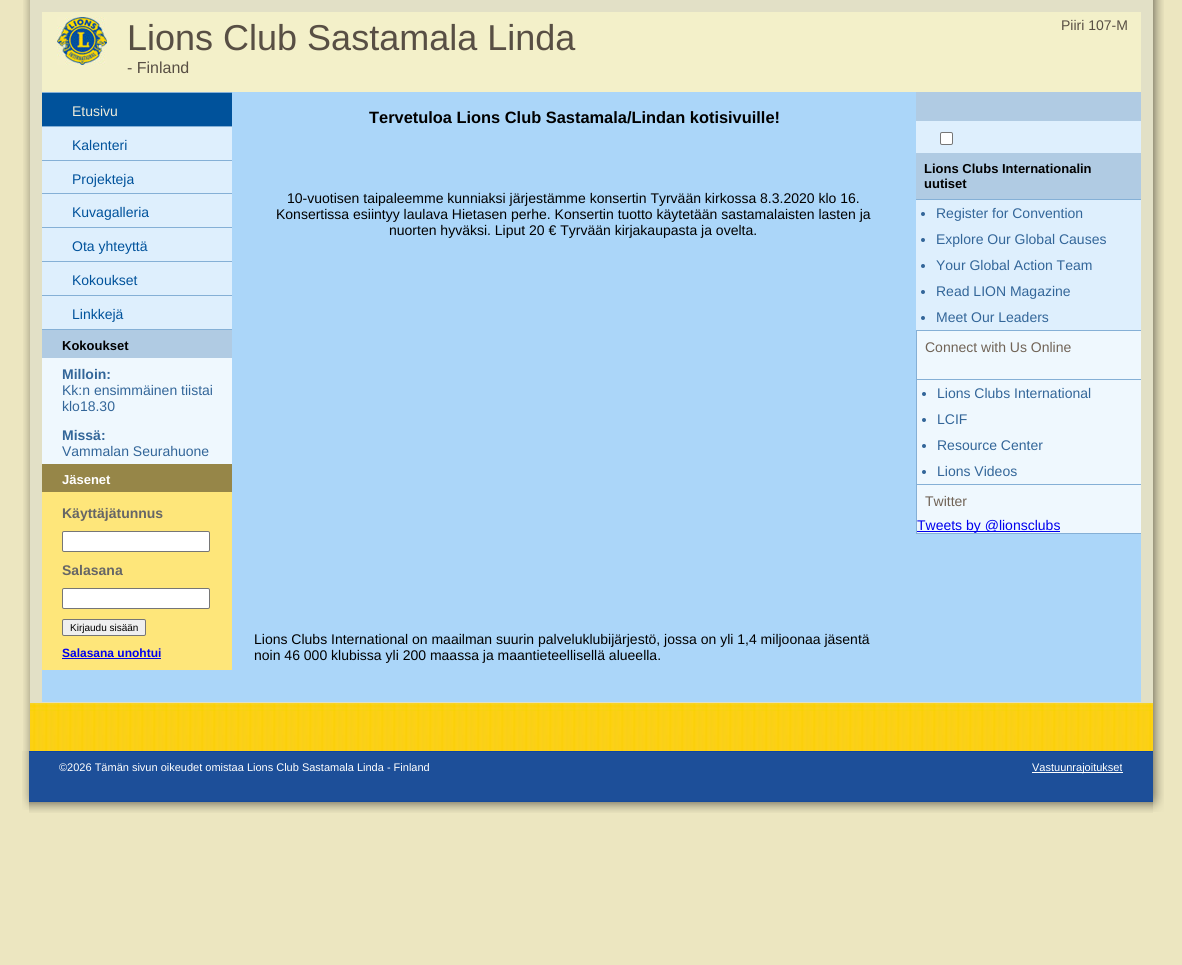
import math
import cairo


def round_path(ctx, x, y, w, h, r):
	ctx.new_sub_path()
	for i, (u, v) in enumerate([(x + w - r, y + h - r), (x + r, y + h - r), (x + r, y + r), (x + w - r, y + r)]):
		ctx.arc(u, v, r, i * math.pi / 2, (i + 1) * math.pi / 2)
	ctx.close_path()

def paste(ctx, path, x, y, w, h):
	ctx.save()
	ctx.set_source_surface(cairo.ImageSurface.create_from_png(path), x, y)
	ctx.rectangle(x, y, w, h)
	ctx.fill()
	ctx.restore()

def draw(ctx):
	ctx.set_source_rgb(0.922, 0.902, 0.753)
	ctx.paint()
	paste(ctx, 'media/1.png', 23, 0, 7, 751)
	ctx.set_source_rgb(0.886, 0.878, 0.776)
	ctx.rectangle(30, 0, 1123, 703)
	ctx.fill()
	paste(ctx, 'media/2.png', 30, 703, 1123, 48)
	ctx.set_source_rgb(0.953, 0.941, 0.788)
	ctx.rectangle(42, 12, 1099, 80)
	ctx.fill()
	paste(ctx, 'media/3.png', 57, 17, 50, 48)
	ctx.select_font_face('Liberation Sans')
	ctx.set_font_size(36)
	ctx.set_source_rgb(0.345, 0.31, 0.267)
	ctx.move_to(127, 50)
	ctx.show_text('Lions Club Sastamala Linda')
	ctx.set_font_size(16)
	ctx.move_to(127, 73)
	ctx.show_text('- Finland')
	ctx.set_font_size(14)
	ctx.move_to(1061, 30)
	ctx.show_text('Piiri 107-M')
	ctx.set_source_rgb(0.671, 0.839, 0.976)
	ctx.rectangle(42, 92, 1099, 610)
	ctx.fill()
	ctx.set_source_rgb(0.522, 0.69, 0.839)
	ctx.rectangle(42, 92, 190, 1)
	ctx.rectangle(42, 126, 190, 1)
	ctx.fill()
	ctx.set_source_rgb(0, 0.322, 0.608)
	ctx.rectangle(42, 93, 190, 33)
	ctx.fill()
	ctx.set_source_rgb(0.929, 0.918, 0.855)
	ctx.move_to(72, 116)
	ctx.show_text('Etusivu')
	ctx.set_source_rgb(0.522, 0.69, 0.839)
	ctx.rectangle(42, 160, 190, 1)
	ctx.fill()
	ctx.set_source_rgb(0.871, 0.937, 0.992)
	ctx.rectangle(42, 127, 190, 33)
	ctx.fill()
	ctx.set_source_rgb(0, 0.322, 0.608)
	ctx.move_to(72, 150)
	ctx.show_text('Kalenteri')
	ctx.set_source_rgb(0.522, 0.69, 0.839)
	ctx.rectangle(42, 193, 190, 1)
	ctx.fill()
	ctx.set_source_rgb(0.871, 0.937, 0.992)
	ctx.rectangle(42, 161, 190, 32)
	ctx.fill()
	ctx.set_source_rgb(0, 0.322, 0.608)
	ctx.move_to(72, 184)
	ctx.show_text('Projekteja')
	ctx.set_source_rgb(0.522, 0.69, 0.839)
	ctx.rectangle(42, 227, 190, 1)
	ctx.fill()
	ctx.set_source_rgb(0.871, 0.937, 0.992)
	ctx.rectangle(42, 194, 190, 33)
	ctx.fill()
	ctx.set_source_rgb(0, 0.322, 0.608)
	ctx.move_to(72, 217)
	ctx.show_text('Kuvagalleria')
	ctx.set_source_rgb(0.522, 0.69, 0.839)
	ctx.rectangle(42, 261, 190, 1)
	ctx.fill()
	ctx.set_source_rgb(0.871, 0.937, 0.992)
	ctx.rectangle(42, 228, 190, 33)
	ctx.fill()
	ctx.set_source_rgb(0, 0.322, 0.608)
	ctx.move_to(72, 251)
	ctx.show_text('Ota yhteyttä')
	ctx.set_source_rgb(0.522, 0.69, 0.839)
	ctx.rectangle(42, 295, 190, 1)
	ctx.fill()
	ctx.set_source_rgb(0.871, 0.937, 0.992)
	ctx.rectangle(42, 262, 190, 33)
	ctx.fill()
	ctx.set_source_rgb(0, 0.322, 0.608)
	ctx.move_to(72, 285)
	ctx.show_text('Kokoukset')
	ctx.set_source_rgb(0.522, 0.69, 0.839)
	ctx.rectangle(42, 329, 190, 1)
	ctx.fill()
	ctx.set_source_rgb(0.871, 0.937, 0.992)
	ctx.rectangle(42, 296, 190, 33)
	ctx.fill()
	ctx.set_source_rgb(0, 0.322, 0.608)
	ctx.move_to(72, 319)
	ctx.show_text('Linkkejä')
	ctx.set_source_rgb(0.937, 0.969, 0.996)
	ctx.rectangle(42, 358, 190, 106)
	ctx.fill()
	ctx.set_source_rgb(0.69, 0.796, 0.89)
	ctx.rectangle(42, 330, 190, 28)
	ctx.fill()
	ctx.select_font_face('Liberation Sans', cairo.FONT_SLANT_NORMAL, cairo.FONT_WEIGHT_BOLD)
	ctx.set_font_size(13)
	ctx.set_source_rgb(0, 0, 0)
	ctx.move_to(62, 350)
	ctx.show_text('Kokoukset')
	ctx.set_font_size(14)
	ctx.set_source_rgb(0.2, 0.4, 0.6)
	ctx.move_to(62, 379)
	ctx.show_text('Milloin:')
	ctx.select_font_face('Liberation Sans')
	ctx.move_to(62, 395)
	ctx.show_text('Kk:n ensimmäinen tiistai')
	ctx.move_to(62, 411)
	ctx.show_text('klo18.30')
	ctx.select_font_face('Liberation Sans', cairo.FONT_SLANT_NORMAL, cairo.FONT_WEIGHT_BOLD)
	ctx.move_to(62, 440)
	ctx.show_text('Missä:')
	ctx.select_font_face('Liberation Sans')
	ctx.move_to(62, 456)
	ctx.show_text('Vammalan Seurahuone')
	ctx.set_source_rgb(0.996, 0.902, 0.478)
	ctx.rectangle(42, 492, 190, 178)
	ctx.fill()
	ctx.set_source_rgb(0.588, 0.525, 0.282)
	ctx.rectangle(42, 464, 190, 28)
	ctx.fill()
	ctx.select_font_face('Liberation Sans', cairo.FONT_SLANT_NORMAL, cairo.FONT_WEIGHT_BOLD)
	ctx.set_font_size(13)
	ctx.set_source_rgb(1, 1, 1)
	ctx.move_to(62, 484)
	ctx.show_text('Jäsenet')
	ctx.set_font_size(14)
	ctx.set_source_rgb(0.4, 0.4, 0.4)
	ctx.move_to(62, 518)
	ctx.show_text('Käyttäjätunnus')
	ctx.set_source_rgb(1, 1, 1)
	round_path(ctx, 62.5, 531.5, 147, 20, 1.5)
	ctx.fill_preserve()
	ctx.set_source_rgb(0.463, 0.463, 0.463)
	ctx.set_line_width(1)
	ctx.stroke()
	ctx.set_source_rgb(0.4, 0.4, 0.4)
	ctx.move_to(62, 575)
	ctx.show_text('Salasana')
	ctx.set_source_rgb(1, 1, 1)
	round_path(ctx, 62.5, 588.5, 147, 20, 1.5)
	ctx.fill_preserve()
	ctx.set_source_rgb(0.463, 0.463, 0.463)
	ctx.stroke()
	ctx.set_source_rgb(0.937, 0.937, 0.937)
	round_path(ctx, 62.5, 619.5, 83, 16, 1.5)
	ctx.fill_preserve()
	ctx.set_source_rgb(0.463, 0.463, 0.463)
	ctx.stroke()
	ctx.select_font_face('Liberation Sans')
	ctx.set_font_size(10)
	ctx.set_source_rgb(0, 0, 0)
	ctx.move_to(70, 631)
	ctx.show_text('Kirjaudu sisään')
	ctx.select_font_face('Liberation Sans', cairo.FONT_SLANT_NORMAL, cairo.FONT_WEIGHT_BOLD)
	ctx.set_font_size(12)
	ctx.set_source_rgb(0, 0, 0.933)
	ctx.move_to(62, 657)
	ctx.show_text('Salasana unohtui')
	ctx.rectangle(62, 658, 99, 1)
	ctx.fill()
	ctx.set_font_size(16.4)
	ctx.set_source_rgb(0, 0, 0)
	ctx.move_to(369, 123)
	ctx.show_text('Tervetuloa Lions Club Sastamala/Lindan kotisivuille!')
	ctx.select_font_face('Liberation Sans')
	ctx.set_font_size(14)
	for x, y, s in [
		(287, 203, '10-vuotisen taipaleemme kunniaksi järjestämme konsertin Tyrvään kirkossa 8.3.2020 klo 16.'),
		(276, 219, 'Konsertissa esiintyy laulava Hietasen perhe. Konsertin tuotto käytetään sastamalaisten lasten ja'),
		(389, 235, 'nuorten hyväksi. Liput 20 € Tyrvään kirjakaupasta ja ovelta.'),
		(254, 644, 'Lions Clubs International on maailman suurin palveluklubijärjestö, jossa on yli 1,4 miljoonaa jäsentä'),
		(254, 660, 'noin 46 000 klubissa yli 200 maassa ja maantieteellisellä alueella.'),
	]:
		ctx.move_to(x, y)
		ctx.show_text(s)
	ctx.set_source_rgb(0.871, 0.937, 0.992)
	ctx.rectangle(916, 121, 225, 32)
	ctx.fill()
	ctx.set_source_rgb(0.69, 0.796, 0.89)
	ctx.rectangle(916, 92, 225, 29)
	ctx.fill()
	ctx.set_source_rgb(1, 1, 1)
	round_path(ctx, 940.5, 132.5, 12, 12, 1.5)
	ctx.fill_preserve()
	ctx.set_source_rgb(0.463, 0.463, 0.463)
	ctx.stroke()
	ctx.set_source_rgb(0.871, 0.937, 0.992)
	ctx.rectangle(916, 200, 225, 130)
	ctx.fill()
	ctx.set_source_rgb(0.69, 0.796, 0.89)
	ctx.rectangle(916, 153, 225, 46)
	ctx.fill()
	ctx.select_font_face('Liberation Sans', cairo.FONT_SLANT_NORMAL, cairo.FONT_WEIGHT_BOLD)
	ctx.set_font_size(13)
	ctx.set_source_rgb(0, 0, 0)
	ctx.move_to(924, 173)
	ctx.show_text('Lions Clubs Internationalin')
	ctx.move_to(924, 188)
	ctx.show_text('uutiset')
	ctx.set_source_rgb(0.522, 0.69, 0.839)
	ctx.rectangle(916, 199, 225, 1)
	ctx.fill()
	ctx.set_source_rgb(0.2, 0.4, 0.6)
	ctx.arc(923, 214, 2, 0, 2 * math.pi)
	ctx.fill()
	ctx.select_font_face('Liberation Sans')
	ctx.set_font_size(14)
	ctx.move_to(936, 218)
	ctx.show_text('Register for Convention')
	ctx.new_path()
	ctx.arc(923, 240, 2, 0, 2 * math.pi)
	ctx.fill()
	ctx.move_to(936, 244)
	ctx.show_text('Explore Our Global Causes')
	ctx.new_path()
	ctx.arc(923, 266, 2, 0, 2 * math.pi)
	ctx.fill()
	ctx.move_to(936, 270)
	ctx.show_text('Your Global Action Team')
	ctx.new_path()
	ctx.arc(923, 292, 2, 0, 2 * math.pi)
	ctx.fill()
	ctx.move_to(936, 296)
	ctx.show_text('Read LION Magazine')
	ctx.new_path()
	ctx.arc(923, 318, 2, 0, 2 * math.pi)
	ctx.fill()
	ctx.move_to(936, 322)
	ctx.show_text('Meet Our Leaders')
	ctx.set_source_rgb(0.522, 0.69, 0.839)
	ctx.rectangle(916, 330, 225, 1)
	ctx.fill()
	ctx.set_source_rgb(0.937, 0.969, 0.996)
	ctx.rectangle(917, 331, 224, 48)
	ctx.fill()
	ctx.set_source_rgb(0.522, 0.69, 0.839)
	ctx.rectangle(916, 331, 1, 48)
	ctx.fill()
	ctx.set_source_rgb(0.439, 0.388, 0.337)
	ctx.move_to(925, 352)
	ctx.show_text('Connect with Us Online')
	ctx.set_source_rgb(0.522, 0.69, 0.839)
	ctx.rectangle(916, 379, 225, 1)
	ctx.fill()
	ctx.set_source_rgb(0.937, 0.969, 0.996)
	ctx.rectangle(917, 380, 224, 104)
	ctx.fill()
	ctx.set_source_rgb(0.522, 0.69, 0.839)
	ctx.rectangle(916, 380, 1, 104)
	ctx.fill()
	ctx.set_source_rgb(0.2, 0.4, 0.6)
	ctx.arc(924, 394, 2, 0, 2 * math.pi)
	ctx.fill()
	ctx.move_to(937, 398)
	ctx.show_text('Lions Clubs International')
	ctx.new_path()
	ctx.arc(924, 420, 2, 0, 2 * math.pi)
	ctx.fill()
	ctx.move_to(937, 424)
	ctx.show_text('LCIF')
	ctx.new_path()
	ctx.arc(924, 446, 2, 0, 2 * math.pi)
	ctx.fill()
	ctx.move_to(937, 450)
	ctx.show_text('Resource Center')
	ctx.new_path()
	ctx.arc(924, 472, 2, 0, 2 * math.pi)
	ctx.fill()
	ctx.move_to(937, 476)
	ctx.show_text('Lions Videos')
	ctx.set_source_rgb(0.522, 0.69, 0.839)
	ctx.rectangle(916, 484, 225, 1)
	ctx.fill()
	ctx.set_source_rgb(0.937, 0.969, 0.996)
	ctx.rectangle(917, 485, 224, 48)
	ctx.fill()
	ctx.set_source_rgb(0.522, 0.69, 0.839)
	ctx.rectangle(916, 485, 1, 48)
	ctx.fill()
	ctx.set_source_rgb(0.439, 0.388, 0.337)
	ctx.move_to(925, 506)
	ctx.show_text('Twitter')
	ctx.set_source_rgb(0, 0, 0.933)
	ctx.rectangle(917, 531, 143, 1)
	ctx.fill()
	ctx.move_to(917, 530)
	ctx.show_text('Tweets by @lionsclubs')
	ctx.set_source_rgb(0.522, 0.69, 0.839)
	ctx.rectangle(916, 533, 225, 1)
	ctx.fill()
	paste(ctx, 'media/4.png', 1153, 0, 11, 751)
	paste(ctx, 'media/5.png', 22, 751, 7, 59)
	paste(ctx, 'media/6.png', 29, 751, 1003, 62)
	ctx.set_font_size(11)
	ctx.set_source_rgb(1, 1, 1)
	ctx.move_to(59, 771)
	ctx.show_text('©2026 Tämän sivun oikeudet omistaa Lions Club Sastamala Linda - Finland')
	paste(ctx, 'media/7.png', 1032, 751, 121, 62)
	ctx.rectangle(1032, 772, 91, 1)
	ctx.fill()
	ctx.move_to(1032, 771)
	ctx.show_text('Vastuunrajoitukset')
	paste(ctx, 'media/8.png', 1153, 751, 11, 61)


surface = cairo.ImageSurface(cairo.FORMAT_RGB24, 1182, 965)
ctx = cairo.Context(surface)
options = cairo.FontOptions()
options.set_hint_metrics(cairo.HINT_METRICS_OFF)
options.set_hint_style(cairo.HINT_STYLE_NONE)
ctx.set_font_options(options)
ctx.set_miter_limit(4)
draw(ctx)
surface.write_to_png('image.png')
